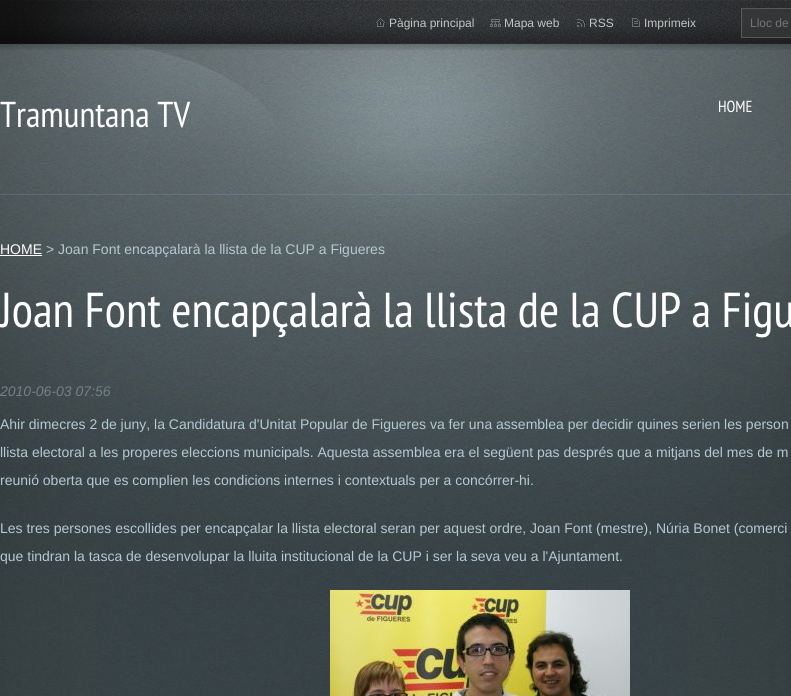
import math
import cairo


def paste(ctx, path, x, y, w, h):
	ctx.save()
	ctx.set_source_surface(cairo.ImageSurface.create_from_png(path), x, y)
	ctx.rectangle(x, y, w, h)
	ctx.fill()
	ctx.restore()

def draw(ctx):
	ctx.set_source_rgb(1, 1, 1)
	ctx.paint()
	paste(ctx, 'media/1.png', 0, 600, 791, 96)
	paste(ctx, 'media/2.png', 0, 44, 791, 556)
	ctx.set_source_rgba(0.514, 0.62, 0.725, 0.26)
	ctx.rectangle(0, 194, 791, 1)
	ctx.fill()
	paste(ctx, 'media/3.png', 0, 0, 791, 50)
	paste(ctx, 'media/4.png', 19, 0, 772, 44)
	paste(ctx, 'media/5.png', 376, 18, 9, 9)
	ctx.select_font_face('Liberation Sans')
	ctx.set_font_size(12)
	ctx.set_source_rgb(0.765, 0.765, 0.765)
	ctx.move_to(389, 27)
	ctx.show_text('Pàgina principal')
	paste(ctx, 'media/6.png', 490, 19, 11, 8)
	ctx.move_to(504, 27)
	ctx.show_text('Mapa web')
	paste(ctx, 'media/7.png', 577, 19, 8, 8)
	ctx.move_to(589, 27)
	ctx.show_text('RSS')
	paste(ctx, 'media/8.png', 632, 18, 8, 9)
	ctx.move_to(644, 27)
	ctx.show_text('Imprimeix')
	paste(ctx, 'media/9.png', 741, 8, 50, 30)
	ctx.set_source_rgb(0.459, 0.459, 0.459)
	ctx.move_to(750, 27)
	ctx.show_text('Lloc de')
	ctx.select_font_face('PT Sans Narrow')
	ctx.set_font_size(36)
	ctx.set_source_rgb(1, 1, 1)
	ctx.move_to(0, 127)
	ctx.show_text('Tramuntana TV')
	ctx.set_font_size(16)
	ctx.move_to(718, 112)
	ctx.show_text('HOME')
	ctx.select_font_face('Liberation Sans')
	ctx.set_font_size(14)
	ctx.move_to(0, 254)
	ctx.show_text('HOME')
	ctx.rectangle(0, 255, 42, 1)
	ctx.fill()
	ctx.set_source_rgb(0.702, 0.788, 0.827)
	ctx.move_to(46, 254)
	ctx.show_text('> Joan Font encapçalarà la llista de la CUP a Figueres')
	ctx.select_font_face('PT Sans Narrow')
	ctx.set_font_size(49)
	ctx.set_source_rgb(1, 1, 1)
	ctx.move_to(0, 327)
	ctx.show_text('Joan Font encapçalarà la llista de la CUP a Figu')
	ctx.select_font_face('Liberation Sans', cairo.FONT_SLANT_ITALIC)
	ctx.set_font_size(14)
	ctx.set_source_rgb(0.459, 0.502, 0.522)
	ctx.move_to(0, 396)
	ctx.show_text('2010-06-03 07:56')
	ctx.select_font_face('Liberation Sans')
	ctx.set_source_rgb(0.702, 0.788, 0.827)
	for x, y, s in [
		(0, 429, 'Ahir dimecres 2 de juny, la Candidatura d\'Unitat Popular de Figueres va fer una assemblea per decidir quines serien les person'),
		(0, 457, 'llista electoral a les properes eleccions municipals. Aquesta assemblea era el següent pas després que a mitjans del mes de m'),
		(0, 485, 'reunió oberta que es complien les condicions internes i contextuals per a concórrer-hi.'),
		(0, 533, 'Les tres persones escollides per encapçalar la llista electoral seran per aquest ordre, Joan Font (mestre), Núria Bonet (comerci'),
		(0, 561, 'que tindran la tasca de desenvolupar la lluita institucional de la CUP i ser la seva veu a l\'Ajuntament.'),
	]:
		ctx.move_to(x, y)
		ctx.show_text(s)
	paste(ctx, 'media/10.png', 330, 590, 300, 106)


surface = cairo.ImageSurface(cairo.FORMAT_RGB24, 791, 696)
ctx = cairo.Context(surface)
options = cairo.FontOptions()
options.set_hint_metrics(cairo.HINT_METRICS_OFF)
options.set_hint_style(cairo.HINT_STYLE_NONE)
ctx.set_font_options(options)
ctx.set_miter_limit(4)
draw(ctx)
surface.write_to_png('image.png')
